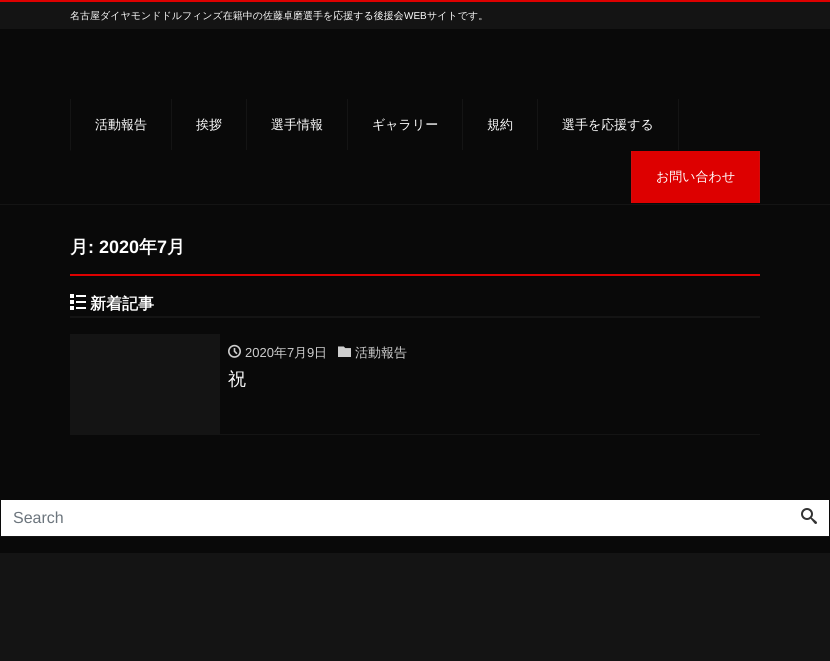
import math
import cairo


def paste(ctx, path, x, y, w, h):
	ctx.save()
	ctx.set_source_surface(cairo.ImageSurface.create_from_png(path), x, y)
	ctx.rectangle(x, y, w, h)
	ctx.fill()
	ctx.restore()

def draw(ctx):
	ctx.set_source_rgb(0.039, 0.039, 0.039)
	ctx.paint()
	ctx.set_source_rgb(0.867, 0, 0)
	ctx.rectangle(0, 0, 830, 2)
	ctx.fill()
	ctx.set_source_rgb(0.082, 0.082, 0.082)
	ctx.rectangle(0, 2, 830, 27)
	ctx.fill()
	ctx.select_font_face('WenQuanYi Zen Hei Medium')
	ctx.set_font_size(10)
	ctx.set_source_rgb(1, 1, 1)
	ctx.move_to(70, 19)
	ctx.show_text('名古屋ダイヤモンドドルフィンズ在籍中の佐藤卓磨選手を応援する後援会')
	ctx.select_font_face('Liberation Sans')
	ctx.move_to(404, 19)
	ctx.show_text('WEB')
	ctx.select_font_face('WenQuanYi Zen Hei Medium')
	ctx.move_to(427, 19)
	ctx.show_text('サイトです。')
	ctx.set_source_rgb(0.082, 0.082, 0.082)
	ctx.rectangle(0, 204, 830, 1)
	ctx.fill()
	ctx.new_path()
	ctx.move_to(70, 151)
	ctx.line_to(70, 99)
	ctx.line_to(71, 99)
	ctx.line_to(71, 150)
	ctx.close_path()
	ctx.fill()
	ctx.rectangle(171, 99, 1, 51)
	ctx.fill()
	ctx.set_font_size(13)
	ctx.set_source_rgb(1, 1, 1)
	ctx.move_to(95, 129)
	ctx.show_text('活動報告')
	ctx.set_source_rgb(0.082, 0.082, 0.082)
	ctx.rectangle(246, 99, 1, 51)
	ctx.fill()
	ctx.set_source_rgb(1, 1, 1)
	ctx.move_to(196, 129)
	ctx.show_text('挨拶')
	ctx.set_source_rgb(0.082, 0.082, 0.082)
	ctx.rectangle(347, 99, 1, 51)
	ctx.fill()
	ctx.set_source_rgb(1, 1, 1)
	ctx.move_to(271, 129)
	ctx.show_text('選手情報')
	ctx.set_source_rgb(0.082, 0.082, 0.082)
	ctx.rectangle(462, 99, 1, 51)
	ctx.fill()
	ctx.set_source_rgb(1, 1, 1)
	ctx.move_to(372, 129)
	ctx.show_text('ギャラリー')
	ctx.set_source_rgb(0.082, 0.082, 0.082)
	ctx.rectangle(537, 99, 1, 51)
	ctx.fill()
	ctx.set_source_rgb(1, 1, 1)
	ctx.move_to(487, 129)
	ctx.show_text('規約')
	ctx.set_source_rgb(0.082, 0.082, 0.082)
	ctx.rectangle(678, 99, 1, 51)
	ctx.fill()
	ctx.set_source_rgb(1, 1, 1)
	ctx.move_to(562, 129)
	ctx.show_text('選手を応援する')
	ctx.set_source_rgb(0.867, 0, 0)
	ctx.rectangle(632, 151, 127, 52)
	ctx.fill()
	ctx.set_source_rgb(0.827, 0.047, 0.047)
	ctx.rectangle(759, 151, 1, 52)
	ctx.rectangle(631, 151, 1, 52)
	ctx.fill()
	ctx.set_source_rgb(1, 1, 1)
	ctx.move_to(656, 181)
	ctx.show_text('お問い合わせ')
	ctx.set_source_rgb(0.867, 0, 0)
	ctx.rectangle(70, 274, 690, 2)
	ctx.fill()
	ctx.select_font_face('WenQuanYi Zen Hei', cairo.FONT_SLANT_NORMAL, cairo.FONT_WEIGHT_BOLD)
	ctx.set_font_size(18)
	ctx.set_source_rgb(1, 1, 1)
	ctx.move_to(70, 253)
	ctx.show_text('月')
	ctx.select_font_face('Liberation Sans', cairo.FONT_SLANT_NORMAL, cairo.FONT_WEIGHT_BOLD)
	ctx.move_to(88, 253)
	ctx.show_text(': 2020')
	ctx.select_font_face('WenQuanYi Zen Hei', cairo.FONT_SLANT_NORMAL, cairo.FONT_WEIGHT_BOLD)
	ctx.move_to(139, 253)
	ctx.show_text('年')
	ctx.select_font_face('Liberation Sans', cairo.FONT_SLANT_NORMAL, cairo.FONT_WEIGHT_BOLD)
	ctx.move_to(157, 253)
	ctx.show_text('7')
	ctx.select_font_face('WenQuanYi Zen Hei', cairo.FONT_SLANT_NORMAL, cairo.FONT_WEIGHT_BOLD)
	ctx.move_to(167, 253)
	ctx.show_text('月')
	ctx.set_source_rgb(0.082, 0.082, 0.082)
	ctx.rectangle(70, 316, 690, 2)
	ctx.fill()
	paste(ctx, 'media/1.png', 70, 294, 16, 16)
	ctx.set_font_size(16)
	ctx.set_source_rgb(1, 1, 1)
	ctx.move_to(90, 309)
	ctx.show_text('新着記事')
	ctx.set_source_rgb(0.082, 0.082, 0.082)
	ctx.rectangle(70, 434, 690, 1)
	ctx.fill()
	ctx.rectangle(70, 334, 150, 100)
	ctx.fill()
	paste(ctx, 'media/2.png', 228, 344, 13, 14)
	ctx.select_font_face('Liberation Sans')
	ctx.set_font_size(13)
	ctx.set_source_rgb(0.808, 0.808, 0.808)
	ctx.move_to(245, 357)
	ctx.show_text('2020')
	ctx.select_font_face('WenQuanYi Zen Hei Medium')
	ctx.move_to(274, 357)
	ctx.show_text('年')
	ctx.select_font_face('Liberation Sans')
	ctx.move_to(287, 357)
	ctx.show_text('7')
	ctx.select_font_face('WenQuanYi Zen Hei Medium')
	ctx.move_to(294, 357)
	ctx.show_text('月')
	ctx.select_font_face('Liberation Sans')
	ctx.move_to(307, 357)
	ctx.show_text('9')
	ctx.select_font_face('WenQuanYi Zen Hei Medium')
	ctx.move_to(314, 357)
	ctx.show_text('日')
	paste(ctx, 'media/3.png', 338, 346, 13, 11)
	ctx.move_to(355, 357)
	ctx.show_text('活動報告')
	ctx.set_font_size(18)
	ctx.set_source_rgb(1, 1, 1)
	ctx.move_to(228, 385)
	ctx.show_text('祝')
	ctx.rectangle(1, 500, 828, 36)
	ctx.fill()
	ctx.set_source_rgb(0.082, 0.082, 0.082)
	ctx.new_path()
	ctx.move_to(830, 537)
	ctx.line_to(0, 537)
	ctx.line_to(1, 536)
	ctx.line_to(829, 536)
	ctx.close_path()
	ctx.fill()
	ctx.select_font_face('Liberation Sans')
	ctx.set_font_size(16)
	ctx.set_source_rgb(0.424, 0.459, 0.49)
	ctx.move_to(13, 523)
	ctx.show_text('Search')
	paste(ctx, 'media/4.png', 801, 508, 16, 16)
	ctx.set_source_rgb(0.082, 0.082, 0.082)
	ctx.rectangle(0, 553, 830, 108)
	ctx.fill()


surface = cairo.ImageSurface(cairo.FORMAT_RGB24, 830, 661)
ctx = cairo.Context(surface)
options = cairo.FontOptions()
options.set_hint_metrics(cairo.HINT_METRICS_OFF)
options.set_hint_style(cairo.HINT_STYLE_NONE)
ctx.set_font_options(options)
ctx.set_miter_limit(4)
draw(ctx)
surface.write_to_png('image.png')
